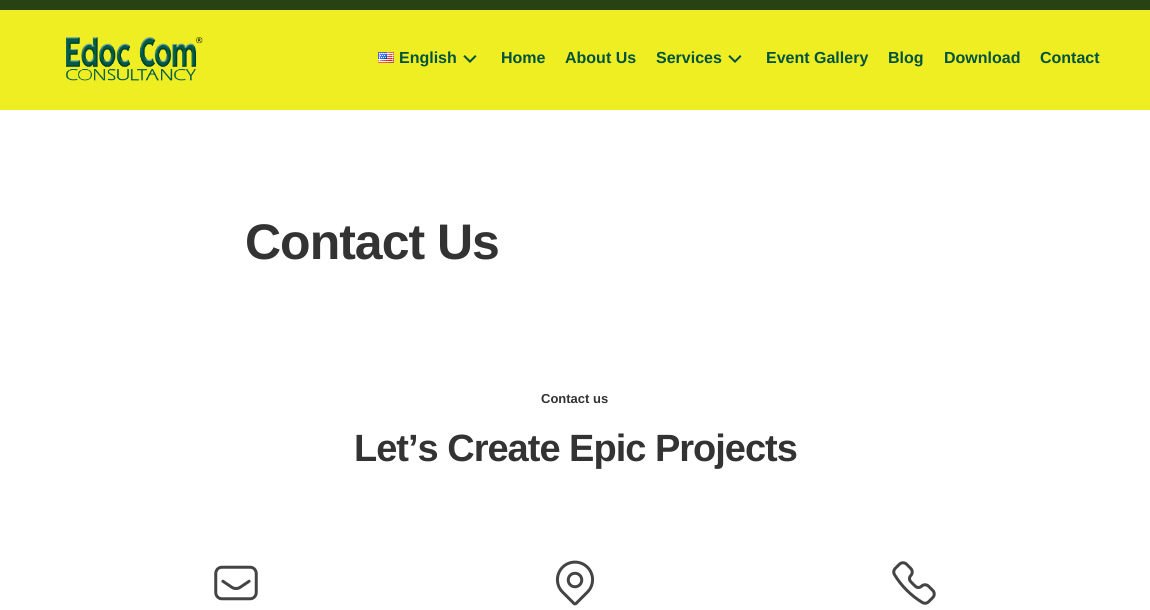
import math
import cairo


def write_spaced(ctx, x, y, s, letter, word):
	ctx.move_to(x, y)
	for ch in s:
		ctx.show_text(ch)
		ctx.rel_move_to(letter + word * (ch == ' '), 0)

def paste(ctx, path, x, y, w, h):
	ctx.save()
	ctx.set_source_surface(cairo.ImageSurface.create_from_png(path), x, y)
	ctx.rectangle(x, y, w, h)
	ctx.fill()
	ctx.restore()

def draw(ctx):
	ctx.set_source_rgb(1, 1, 1)
	ctx.paint()
	ctx.set_source_rgb(0.161, 0.259, 0.078)
	ctx.rectangle(0, 0, 1150, 10)
	ctx.fill()
	ctx.set_source_rgb(0.933, 0.933, 0.133)
	ctx.rectangle(0, 10, 1150, 100)
	ctx.fill()
	paste(ctx, 'media/1.png', 66, 37, 137, 44)
	paste(ctx, 'media/2.png', 378, 52, 16, 11)
	ctx.select_font_face('Liberation Sans', cairo.FONT_SLANT_NORMAL, cairo.FONT_WEIGHT_BOLD)
	ctx.set_font_size(16)
	ctx.set_source_rgb(0.004, 0.325, 0.239)
	ctx.move_to(399, 63)
	ctx.show_text('English')
	paste(ctx, 'media/3.png', 463, 55, 14, 8)
	for x, y, s in [
		(501, 63, 'Home'),
		(565, 63, 'About Us'),
		(656, 63, 'Services'),
	]:
		ctx.move_to(x, y)
		ctx.show_text(s)
	paste(ctx, 'media/3.png', 728, 55, 14, 8)
	for x, y, s in [
		(766, 63, 'Event Gallery'),
		(888, 63, 'Blog'),
		(944, 63, 'Download'),
		(1040, 63, 'Contact'),
	]:
		ctx.move_to(x, y)
		ctx.show_text(s)
	ctx.set_font_size(50)
	ctx.set_source_rgb(0.2, 0.2, 0.2)
	write_spaced(ctx, 245, 259, 'Contact Us', -1, 0)
	ctx.set_font_size(13)
	ctx.move_to(541, 403)
	ctx.show_text('Contact us')
	ctx.set_font_size(38)
	write_spaced(ctx, 354, 461, 'Let’s Create Epic Projects', -1, 0)
	paste(ctx, 'media/4.png', 214, 565, 44, 36)
	paste(ctx, 'media/5.png', 555, 560, 40, 46)
	paste(ctx, 'media/6.png', 892, 561, 44, 44)


surface = cairo.ImageSurface(cairo.FORMAT_RGB24, 1150, 610)
ctx = cairo.Context(surface)
options = cairo.FontOptions()
options.set_hint_metrics(cairo.HINT_METRICS_OFF)
options.set_hint_style(cairo.HINT_STYLE_NONE)
ctx.set_font_options(options)
ctx.set_miter_limit(4)
draw(ctx)
surface.write_to_png('image.png')
